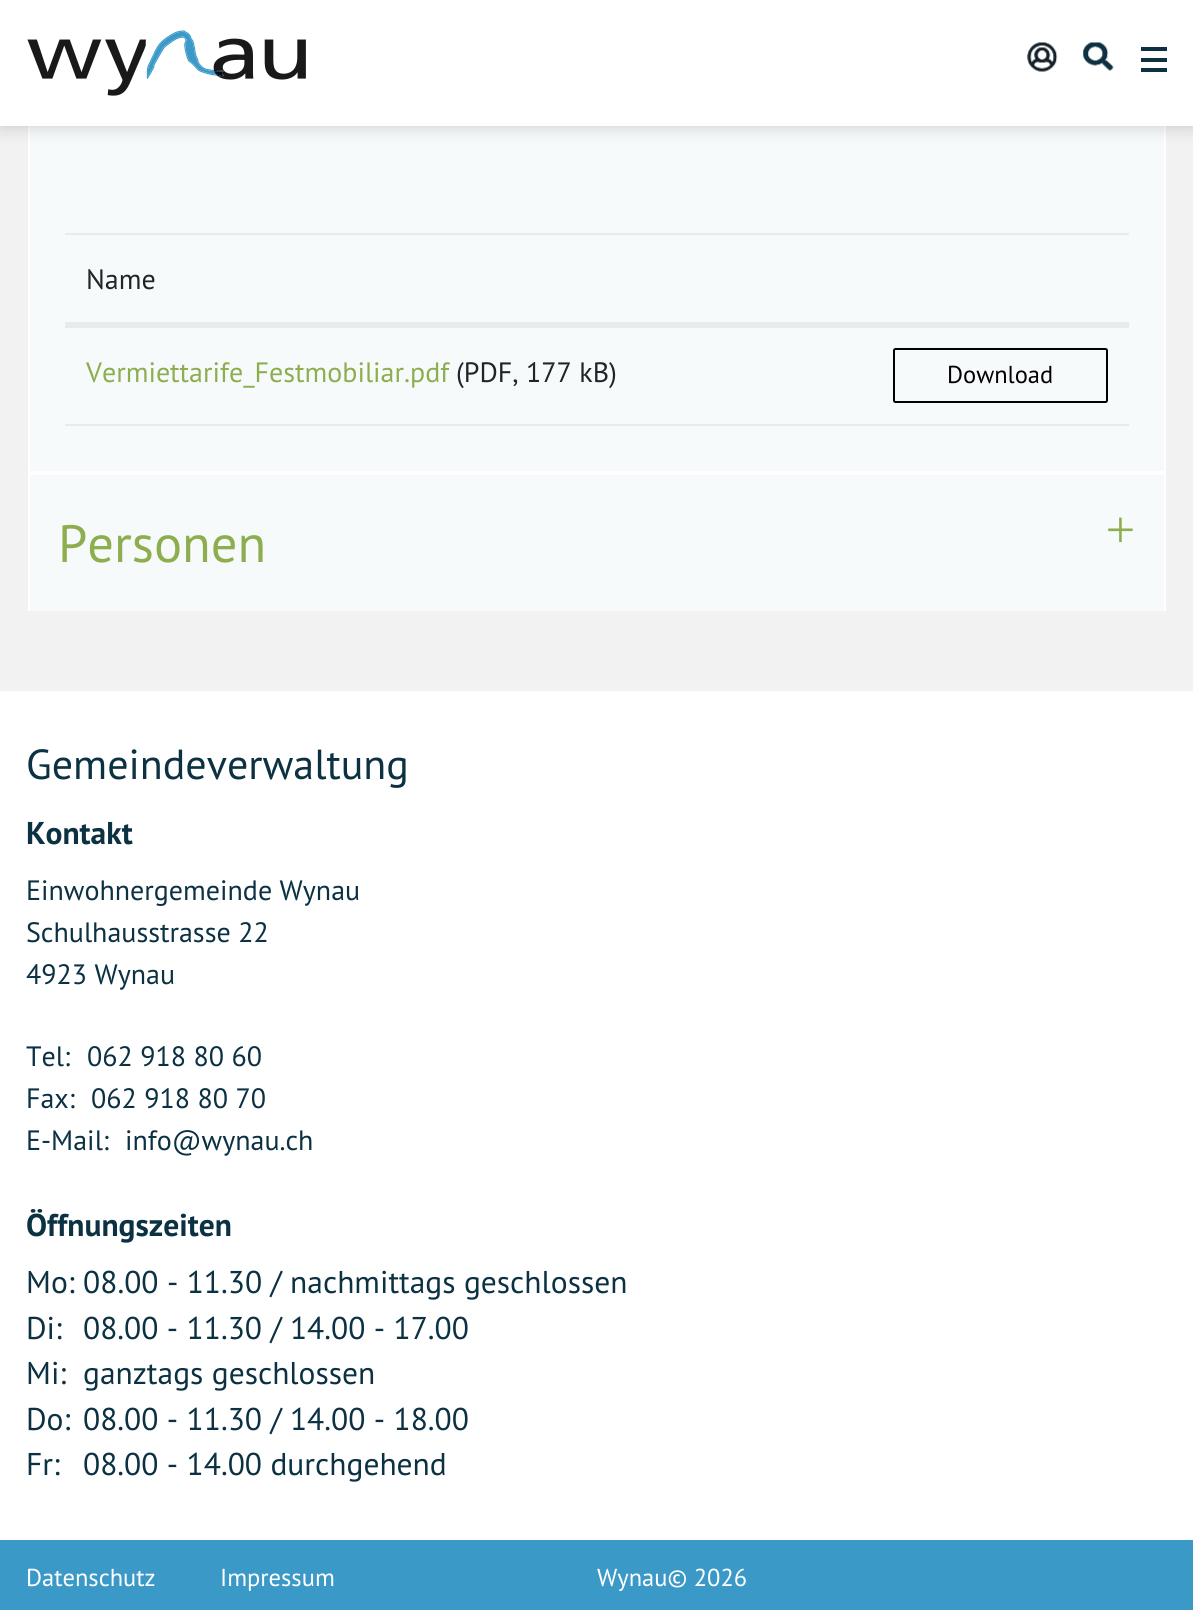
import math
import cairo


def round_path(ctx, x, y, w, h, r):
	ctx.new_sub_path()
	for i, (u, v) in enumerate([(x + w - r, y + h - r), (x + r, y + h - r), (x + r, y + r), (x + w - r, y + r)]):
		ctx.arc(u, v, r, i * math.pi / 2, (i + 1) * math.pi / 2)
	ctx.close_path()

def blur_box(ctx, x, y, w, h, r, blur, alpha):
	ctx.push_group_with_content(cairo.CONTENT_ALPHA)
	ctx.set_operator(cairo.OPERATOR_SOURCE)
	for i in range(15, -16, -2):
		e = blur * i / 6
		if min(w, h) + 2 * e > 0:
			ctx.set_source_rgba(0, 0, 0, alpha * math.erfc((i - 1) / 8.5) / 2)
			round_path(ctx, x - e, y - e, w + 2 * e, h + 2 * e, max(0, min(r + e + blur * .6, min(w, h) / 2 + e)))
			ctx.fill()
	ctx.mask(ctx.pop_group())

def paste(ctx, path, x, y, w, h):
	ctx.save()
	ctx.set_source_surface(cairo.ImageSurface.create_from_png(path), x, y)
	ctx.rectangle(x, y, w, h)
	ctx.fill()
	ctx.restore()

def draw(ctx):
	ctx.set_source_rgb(0.949, 0.949, 0.949)
	ctx.paint()
	ctx.set_source_rgb(0.965, 0.98, 0.984)
	ctx.rectangle(30, 126, 1134, 345)
	ctx.fill()
	ctx.rectangle(29, 50, 1136, 422)
	ctx.set_source_rgb(1, 1, 1)
	ctx.stroke()
	ctx.set_source_rgb(0, 0, 0)
	blur_box(ctx, 0, 0, 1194, 126, 0, 9, 0.2)
	ctx.set_source_rgb(1, 1, 1)
	ctx.rectangle(0, 0, 1193, 126)
	ctx.fill()
	paste(ctx, 'media/1.png', 27, 30, 279, 66)
	paste(ctx, 'media/2.png', 1027, 42, 31, 30)
	paste(ctx, 'media/3.png', 1083, 42, 31, 29)
	ctx.set_source_rgb(0.043, 0.192, 0.263)
	ctx.rectangle(1141, 47, 26, 4)
	ctx.rectangle(1141, 58, 26, 4)
	ctx.rectangle(1141, 68, 26, 4)
	ctx.fill()
	ctx.set_source_rgb(0.902, 0.925, 0.933)
	ctx.rectangle(65, 424, 1064, 2)
	ctx.rectangle(65, 233, 1064, 2)
	ctx.rectangle(65, 322, 1064, 4)
	ctx.fill()
	ctx.select_font_face('PT Sans')
	ctx.set_font_size(28)
	ctx.set_source_rgb(0.129, 0.145, 0.161)
	ctx.move_to(86, 289)
	ctx.show_text('Name')
	ctx.set_source_rgb(0.902, 0.925, 0.933)
	ctx.rectangle(65, 326, 1064, 2)
	ctx.fill()
	ctx.set_source_rgb(0.553, 0.682, 0.306)
	ctx.move_to(86, 382)
	ctx.show_text('Vermiettarife_Festmobiliar.pdf')
	ctx.set_source_rgb(0.129, 0.145, 0.161)
	ctx.move_to(456, 382)
	ctx.show_text('(PDF, 177 kB)')
	round_path(ctx, 894, 349, 213, 53, 1.5)
	ctx.set_source_rgb(0, 0, 0)
	ctx.stroke()
	ctx.set_font_size(24.5)
	ctx.move_to(947, 383)
	ctx.show_text('Download')
	ctx.set_source_rgb(0.965, 0.98, 0.984)
	ctx.rectangle(30, 475, 1134, 136)
	ctx.fill()
	ctx.set_source_rgb(1, 1, 1)
	ctx.rectangle(28, 473, 1138, 2)
	ctx.rectangle(1164, 473, 2, 138)
	ctx.rectangle(28, 473, 2, 138)
	ctx.fill()
	ctx.set_font_size(52.5)
	ctx.set_source_rgb(0.553, 0.682, 0.306)
	ctx.move_to(58, 562)
	ctx.show_text('Personen')
	ctx.select_font_face('Liberation Serif')
	ctx.save()
	ctx.translate(1103, 515)
	ctx.rotate(90 * math.pi / 180)
	ctx.move_to(0, 0)
	ctx.show_text('+')
	ctx.restore()
	ctx.set_source_rgb(1, 1, 1)
	ctx.rectangle(0, 691, 1193, 849)
	ctx.fill()
	ctx.select_font_face('PT Sans')
	ctx.set_font_size(42)
	ctx.set_source_rgb(0.043, 0.192, 0.263)
	ctx.move_to(26, 779)
	ctx.show_text('Gemeindeverwaltung')
	ctx.select_font_face('PT Sans', cairo.FONT_SLANT_NORMAL, cairo.FONT_WEIGHT_BOLD)
	ctx.set_font_size(31.5)
	ctx.move_to(26, 844)
	ctx.show_text('Kontakt')
	ctx.select_font_face('PT Sans')
	ctx.set_font_size(28)
	for x, y, s in [
		(26, 900, 'Einwohnergemeinde Wynau'),
		(26, 942, 'Schulhausstrasse 22'),
		(26, 984, '4923 Wynau'),
		(26, 1066, 'Tel:'),
		(87, 1066, '062 918 80 60'),
		(26, 1108, 'Fax:'),
		(91, 1108, '062 918 80 70'),
		(26, 1150, 'E-Mail:'),
		(125, 1150, 'info@wynau.ch'),
	]:
		ctx.move_to(x, y)
		ctx.show_text(s)
	ctx.select_font_face('PT Sans', cairo.FONT_SLANT_NORMAL, cairo.FONT_WEIGHT_BOLD)
	ctx.set_font_size(31.5)
	ctx.move_to(26, 1236)
	ctx.show_text('Öffnungszeiten')
	ctx.select_font_face('PT Sans')
	for x, y, s in [
		(26, 1293, 'Mo: 08.00 - 11.30 / nachmittags geschlossen'),
		(26, 1339, 'Di:'),
		(83, 1339, '08.00 - 11.30 / 14.00 - 17.00'),
		(26, 1384, 'Mi:'),
		(83, 1384, 'ganztags geschlossen'),
		(26, 1430, 'Do:'),
		(83, 1430, '08.00 - 11.30 / 14.00 - 18.00'),
		(26, 1475, 'Fr:'),
		(83, 1475, '08.00 - 14.00 durchgehend'),
	]:
		ctx.move_to(x, y)
		ctx.show_text(s)
	ctx.set_source_rgb(0.231, 0.6, 0.784)
	ctx.rectangle(0, 1540, 1193, 70)
	ctx.fill()
	ctx.set_font_size(24.5)
	ctx.set_source_rgb(1, 1, 1)
	for x, y, s in [
		(26, 1586, 'Datenschutz'),
		(220, 1586, 'Impressum'),
		(597, 1586, 'Wynau© 2026'),
	]:
		ctx.move_to(x, y)
		ctx.show_text(s)


surface = cairo.ImageSurface(cairo.FORMAT_RGB24, 1193, 1610)
ctx = cairo.Context(surface)
options = cairo.FontOptions()
options.set_hint_metrics(cairo.HINT_METRICS_OFF)
options.set_hint_style(cairo.HINT_STYLE_NONE)
ctx.set_font_options(options)
ctx.set_miter_limit(4)
draw(ctx)
surface.write_to_png('image.png')
